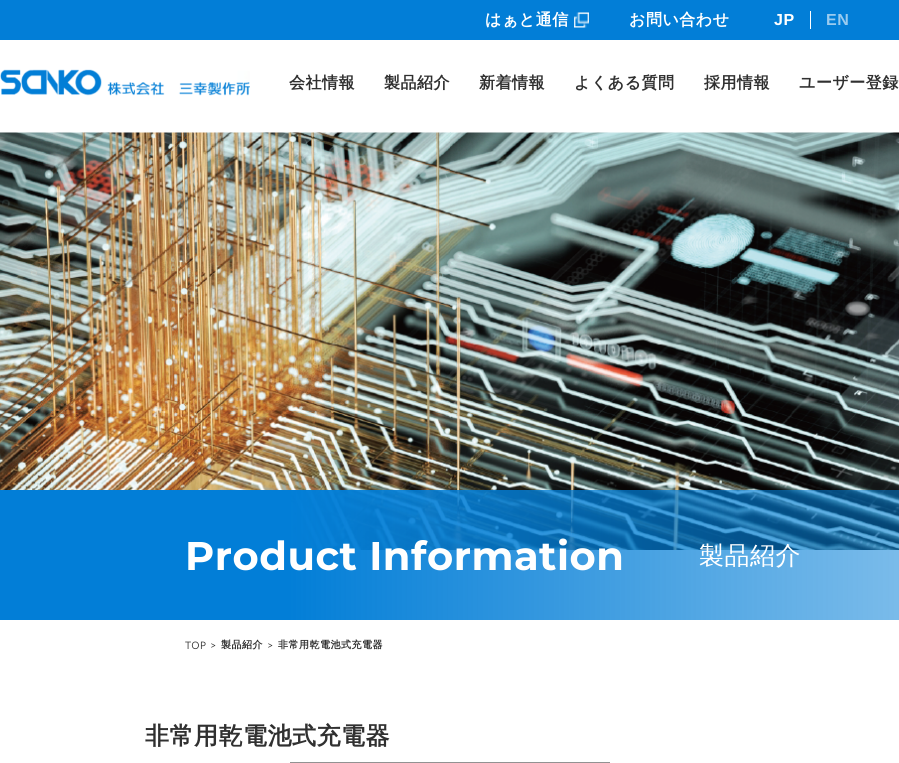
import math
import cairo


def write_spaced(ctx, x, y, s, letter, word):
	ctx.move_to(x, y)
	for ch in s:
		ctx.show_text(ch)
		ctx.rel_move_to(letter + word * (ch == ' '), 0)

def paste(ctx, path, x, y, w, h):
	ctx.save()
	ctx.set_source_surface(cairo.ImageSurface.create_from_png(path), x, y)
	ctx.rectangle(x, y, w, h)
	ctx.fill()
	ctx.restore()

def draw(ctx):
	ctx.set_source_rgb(1, 1, 1)
	ctx.paint()
	ctx.set_source_rgb(0.008, 0.494, 0.843)
	ctx.rectangle(0, 0, 899, 40)
	ctx.fill()
	ctx.select_font_face('WenQuanYi Zen Hei', cairo.FONT_SLANT_NORMAL, cairo.FONT_WEIGHT_BOLD)
	ctx.set_font_size(16)
	ctx.set_source_rgb(1, 1, 1)
	write_spaced(ctx, 485, 25, 'はぁと通信', 0.5, 0)
	paste(ctx, 'media/1.png', 574, 12, 15, 16)
	write_spaced(ctx, 629, 25, 'お問い合わせ', 0.5, 0)
	ctx.rectangle(810, 11, 1, 18)
	ctx.fill()
	ctx.select_font_face('Liberation Sans', cairo.FONT_SLANT_NORMAL, cairo.FONT_WEIGHT_BOLD)
	write_spaced(ctx, 774, 25, 'JP', 0.5, 0)
	ctx.set_source_rgb(0.604, 0.796, 0.937)
	write_spaced(ctx, 826, 25, 'EN', 0.5, 0)
	paste(ctx, 'media/2.png', 0, 69, 250, 27)
	ctx.select_font_face('WenQuanYi Zen Hei', cairo.FONT_SLANT_NORMAL, cairo.FONT_WEIGHT_BOLD)
	ctx.set_source_rgb(0.188, 0.188, 0.188)
	for x, y, s in [
		(289, 88, '会社情報'),
		(384, 88, '製品紹介'),
		(479, 88, '新着情報'),
		(574, 88, 'よくある質問'),
		(704, 88, '採用情報'),
		(799, 88, 'ユーザー登録'),
	]:
		write_spaced(ctx, x, y, s, 0.5, 0)
	paste(ctx, 'media/3.png', 0, 132, 899, 418)
	gradient = cairo.LinearGradient(0, 555, 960, 555)
	gradient.add_color_stop_rgba(0, 0.008, 0.494, 0.843, 1)
	gradient.add_color_stop_rgba(0.3, 0.008, 0.494, 0.843, 1)
	gradient.add_color_stop_rgba(1, 0.008, 0.494, 0.843, 0.48)
	ctx.set_source(gradient)
	ctx.rectangle(0, 490, 899, 130)
	ctx.fill()
	ctx.select_font_face('Montserrat', cairo.FONT_SLANT_NORMAL, cairo.FONT_WEIGHT_BOLD)
	ctx.set_font_size(40)
	ctx.set_source_rgb(1, 1, 1)
	write_spaced(ctx, 185, 570, 'Product Information', 0.5, 0)
	ctx.select_font_face('WenQuanYi Zen Hei Medium')
	ctx.set_font_size(25)
	write_spaced(ctx, 699, 564, '製品紹介', 0.5, 0)
	ctx.select_font_face('Lato', cairo.FONT_SLANT_NORMAL, cairo.FONT_WEIGHT_BOLD)
	ctx.set_font_size(10)
	ctx.set_source_rgb(0.188, 0.188, 0.188)
	write_spaced(ctx, 185, 649, 'TOP', 0.5, 0)
	write_spaced(ctx, 210, 649, '>', 0.5, 0)
	ctx.select_font_face('WenQuanYi Zen Hei', cairo.FONT_SLANT_NORMAL, cairo.FONT_WEIGHT_BOLD)
	write_spaced(ctx, 221, 648, '製品紹介', 0.5, 0)
	ctx.select_font_face('Lato', cairo.FONT_SLANT_NORMAL, cairo.FONT_WEIGHT_BOLD)
	write_spaced(ctx, 267, 649, '>', 0.5, 0)
	ctx.select_font_face('WenQuanYi Zen Hei', cairo.FONT_SLANT_NORMAL, cairo.FONT_WEIGHT_BOLD)
	write_spaced(ctx, 278, 648, '非常用乾電池式充電器', 0.5, 0)
	ctx.set_font_size(24)
	write_spaced(ctx, 145, 744, '非常用乾電池式充電器', 0.5, 0)
	ctx.rectangle(290.5, 762.5, 319, 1)
	ctx.set_source_rgb(0.573, 0.573, 0.573)
	ctx.set_line_width(1)
	ctx.stroke()


surface = cairo.ImageSurface(cairo.FORMAT_RGB24, 899, 763)
ctx = cairo.Context(surface)
options = cairo.FontOptions()
options.set_hint_metrics(cairo.HINT_METRICS_OFF)
options.set_hint_style(cairo.HINT_STYLE_NONE)
ctx.set_font_options(options)
ctx.set_miter_limit(4)
draw(ctx)
surface.write_to_png('image.png')
